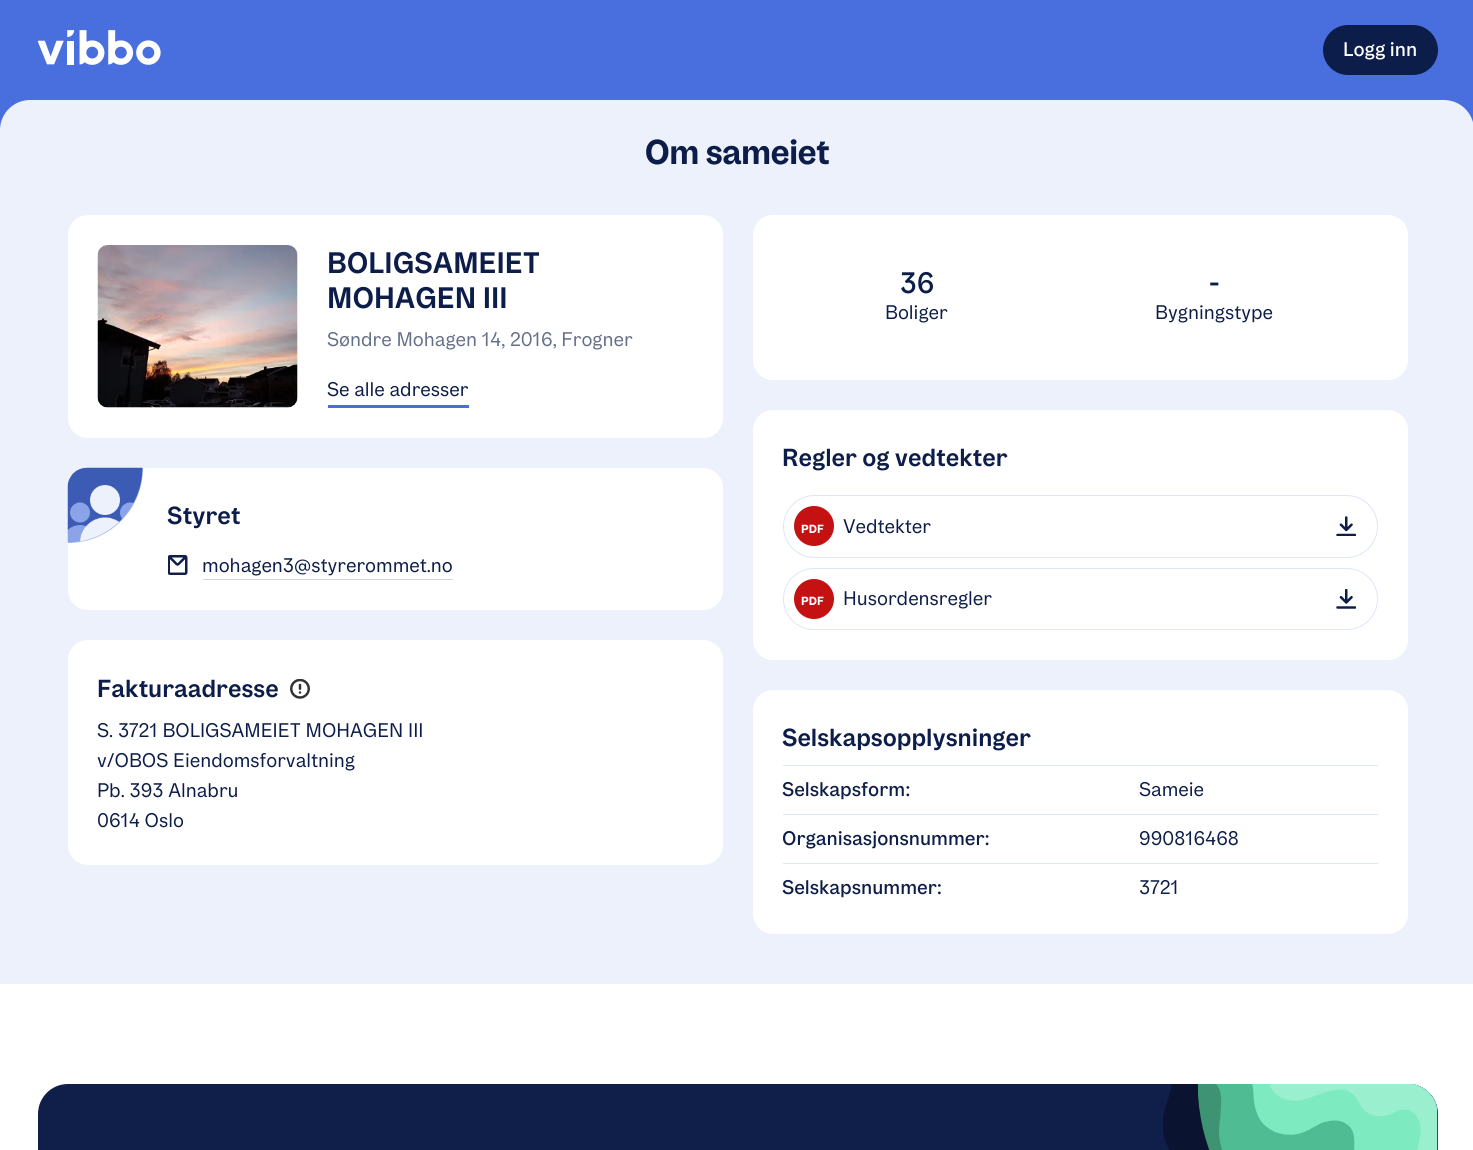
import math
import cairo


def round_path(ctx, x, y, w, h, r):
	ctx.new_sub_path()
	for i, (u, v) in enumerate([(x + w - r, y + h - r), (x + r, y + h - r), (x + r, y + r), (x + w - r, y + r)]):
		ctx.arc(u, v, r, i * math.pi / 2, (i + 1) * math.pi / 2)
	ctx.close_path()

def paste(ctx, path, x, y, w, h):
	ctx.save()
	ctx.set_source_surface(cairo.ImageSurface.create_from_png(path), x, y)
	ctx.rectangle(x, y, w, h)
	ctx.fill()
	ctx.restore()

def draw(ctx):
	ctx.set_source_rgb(0.282, 0.435, 0.867)
	ctx.paint()
	paste(ctx, 'media/1.png', 38, 30, 123, 35)
	ctx.set_source_rgb(0.051, 0.114, 0.286)
	round_path(ctx, 1323, 25, 115, 50, 25)
	ctx.fill()
	ctx.select_font_face('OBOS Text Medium')
	ctx.set_font_size(20)
	ctx.set_source_rgb(1, 1, 1)
	ctx.move_to(1343, 56)
	ctx.show_text('Logg inn')
	ctx.set_source_rgb(0.929, 0.945, 0.984)
	ctx.new_path()
	ctx.move_to(30, 100)
	ctx.line_to(1444, 100)
	ctx.curve_to(1460.5, 100, 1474, 113.5, 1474, 130)
	ctx.line_to(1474, 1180)
	ctx.line_to(0, 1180)
	ctx.line_to(0, 130)
	ctx.curve_to(0, 113.5, 13.5, 100, 30, 100)
	ctx.close_path()
	ctx.fill()
	ctx.select_font_face('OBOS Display', cairo.FONT_SLANT_NORMAL, cairo.FONT_WEIGHT_BOLD)
	ctx.set_font_size(35)
	ctx.set_source_rgb(0.051, 0.114, 0.286)
	ctx.move_to(645, 164)
	ctx.show_text('Om sameiet')
	ctx.set_source_rgb(1, 1, 1)
	round_path(ctx, 68, 215, 655, 223, 20)
	ctx.fill()
	ctx.set_source_rgb(0.976, 0.976, 0.984)
	round_path(ctx, 98, 245, 200, 163, 10)
	ctx.fill()
	paste(ctx, 'media/2.png', 97, 245, 201, 163)
	ctx.select_font_face('OBOS Text SemiBold')
	ctx.set_font_size(30)
	ctx.set_source_rgb(0.051, 0.114, 0.286)
	ctx.move_to(327, 273)
	ctx.show_text('BOLIGSAMEIET')
	ctx.move_to(327, 308)
	ctx.show_text('MOHAGEN III')
	ctx.select_font_face('OBOS Text')
	ctx.set_font_size(20)
	ctx.set_source_rgb(0.4, 0.435, 0.537)
	ctx.move_to(327, 346)
	ctx.show_text('Søndre Mohagen 14, 2016, Frogner')
	ctx.set_source_rgb(0.282, 0.435, 0.867)
	ctx.rectangle(328, 405, 141, 3)
	ctx.fill()
	ctx.set_source_rgb(0.051, 0.114, 0.286)
	ctx.move_to(327, 396)
	ctx.show_text('Se alle adresser')
	ctx.set_source_rgb(1, 1, 1)
	round_path(ctx, 68, 468, 655, 142, 20)
	ctx.fill()
	ctx.set_source_rgb(0.671, 0.741, 0.937)
	ctx.new_path()
	ctx.move_to(88, 468)
	ctx.line_to(143, 468)
	ctx.curve_to(143, 509.5, 109.5, 543, 68, 543)
	ctx.line_to(68, 488)
	ctx.curve_to(68, 477, 77, 468, 88, 468)
	ctx.close_path()
	ctx.fill()
	paste(ctx, 'media/3.png', 67, 467, 76, 76)
	ctx.select_font_face('OBOS Text SemiBold')
	ctx.set_font_size(25)
	ctx.set_source_rgb(0.051, 0.114, 0.286)
	ctx.move_to(167, 524)
	ctx.show_text('Styret')
	paste(ctx, 'media/4.png', 168, 555, 20, 20)
	ctx.select_font_face('OBOS Text')
	ctx.set_font_size(20)
	ctx.move_to(202, 572)
	ctx.show_text('mohagen3@styrerommet.no')
	ctx.set_source_rgb(0.827, 0.827, 0.827)
	ctx.rectangle(203, 579, 250, 1)
	ctx.fill()
	ctx.set_source_rgb(1, 1, 1)
	round_path(ctx, 68, 640, 655, 225, 20)
	ctx.fill()
	ctx.select_font_face('OBOS Text SemiBold')
	ctx.set_font_size(25)
	ctx.set_source_rgb(0.051, 0.114, 0.286)
	ctx.move_to(97, 697)
	ctx.show_text('Fakturaadresse')
	paste(ctx, 'media/5.png', 290, 679, 20, 20)
	ctx.select_font_face('OBOS Text')
	ctx.set_font_size(20)
	for x, y, s in [
		(97, 737, 'S. 3721 BOLIGSAMEIET MOHAGEN III'),
		(97, 767, 'v/OBOS Eiendomsforvaltning'),
		(97, 797, 'Pb. 393 Alnabru'),
		(97, 827, '0614 Oslo'),
	]:
		ctx.move_to(x, y)
		ctx.show_text(s)
	ctx.set_source_rgb(1, 1, 1)
	round_path(ctx, 753, 215, 655, 165, 20)
	ctx.fill()
	ctx.select_font_face('OBOS Text Medium')
	ctx.set_font_size(30)
	ctx.set_source_rgb(0.051, 0.114, 0.286)
	ctx.move_to(900, 293)
	ctx.show_text('36')
	ctx.select_font_face('OBOS Text')
	ctx.set_font_size(20)
	ctx.move_to(885, 319)
	ctx.show_text('Boliger')
	ctx.select_font_face('OBOS Text Medium')
	ctx.set_font_size(30)
	ctx.move_to(1209, 293)
	ctx.show_text('-')
	ctx.select_font_face('OBOS Text')
	ctx.set_font_size(20)
	ctx.move_to(1155, 319)
	ctx.show_text('Bygningstype')
	ctx.set_source_rgb(1, 1, 1)
	round_path(ctx, 753, 410, 655, 250, 20)
	ctx.fill()
	ctx.select_font_face('OBOS Text SemiBold')
	ctx.set_font_size(25)
	ctx.set_source_rgb(0.051, 0.114, 0.286)
	ctx.move_to(782, 466)
	ctx.show_text('Regler og vedtekter')
	round_path(ctx, 783.5, 495.5, 594, 62, 31)
	ctx.set_source_rgb(0.867, 0.898, 0.976)
	ctx.set_line_width(1)
	ctx.stroke()
	ctx.set_source_rgb(0.769, 0.071, 0.071)
	ctx.arc(814, 526, 20, 0, 2 * math.pi)
	ctx.fill()
	ctx.select_font_face('OBOS Text', cairo.FONT_SLANT_NORMAL, cairo.FONT_WEIGHT_BOLD)
	ctx.set_font_size(12)
	ctx.set_source_rgb(1, 1, 1)
	ctx.move_to(801, 533)
	ctx.show_text('PDF')
	ctx.select_font_face('OBOS Text')
	ctx.set_font_size(20)
	ctx.set_source_rgb(0.051, 0.114, 0.286)
	ctx.move_to(843, 533)
	ctx.show_text('Vedtekter')
	paste(ctx, 'media/6.png', 1336, 516, 20, 20)
	round_path(ctx, 783.5, 568.5, 594, 61, 30.5)
	ctx.set_source_rgb(0.867, 0.898, 0.976)
	ctx.stroke()
	ctx.set_source_rgb(0.769, 0.071, 0.071)
	ctx.arc(814, 599, 20, 0, 2 * math.pi)
	ctx.fill()
	ctx.select_font_face('OBOS Text', cairo.FONT_SLANT_NORMAL, cairo.FONT_WEIGHT_BOLD)
	ctx.set_font_size(12)
	ctx.set_source_rgb(1, 1, 1)
	ctx.move_to(801, 605)
	ctx.show_text('PDF')
	ctx.select_font_face('OBOS Text')
	ctx.set_font_size(20)
	ctx.set_source_rgb(0.051, 0.114, 0.286)
	ctx.move_to(843, 605)
	ctx.show_text('Husordensregler')
	paste(ctx, 'media/7.png', 1336, 589, 20, 20)
	ctx.set_source_rgb(1, 1, 1)
	round_path(ctx, 753, 690, 655, 244, 20)
	ctx.fill()
	ctx.select_font_face('OBOS Text SemiBold')
	ctx.set_font_size(25)
	ctx.set_source_rgb(0.051, 0.114, 0.286)
	ctx.move_to(782, 746)
	ctx.show_text('Selskapsopplysninger')
	ctx.set_source_rgb(0.878, 0.898, 0.957)
	ctx.rectangle(783, 765, 595, 1)
	ctx.fill()
	ctx.select_font_face('OBOS Text Medium')
	ctx.set_font_size(20)
	ctx.set_source_rgb(0.051, 0.114, 0.286)
	ctx.move_to(782, 796)
	ctx.show_text('Selskapsform:')
	ctx.select_font_face('OBOS Text')
	ctx.move_to(1139, 796)
	ctx.show_text('Sameie')
	ctx.set_source_rgb(0.878, 0.898, 0.957)
	ctx.rectangle(783, 814, 595, 1)
	ctx.fill()
	ctx.select_font_face('OBOS Text Medium')
	ctx.set_source_rgb(0.051, 0.114, 0.286)
	ctx.move_to(782, 845)
	ctx.show_text('Organisasjonsnummer:')
	ctx.select_font_face('OBOS Text')
	ctx.move_to(1139, 845)
	ctx.show_text('990816468')
	ctx.set_source_rgb(0.878, 0.898, 0.957)
	ctx.rectangle(783, 863, 595, 1)
	ctx.fill()
	ctx.select_font_face('OBOS Text Medium')
	ctx.set_source_rgb(0.051, 0.114, 0.286)
	ctx.move_to(782, 894)
	ctx.show_text('Selskapsnummer:')
	ctx.select_font_face('OBOS Text')
	ctx.move_to(1139, 894)
	ctx.show_text('3721')
	ctx.set_source_rgb(1, 1, 1)
	ctx.rectangle(0, 984, 1473, 166)
	ctx.fill()
	ctx.set_source_rgb(0.063, 0.118, 0.29)
	round_path(ctx, 38, 1084, 1400, 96, 30)
	ctx.fill()
	paste(ctx, 'media/8.png', 1163, 1084, 275, 66)


surface = cairo.ImageSurface(cairo.FORMAT_RGB24, 1473, 1150)
ctx = cairo.Context(surface)
options = cairo.FontOptions()
options.set_hint_metrics(cairo.HINT_METRICS_OFF)
options.set_hint_style(cairo.HINT_STYLE_NONE)
ctx.set_font_options(options)
ctx.set_miter_limit(4)
draw(ctx)
surface.write_to_png('image.png')
